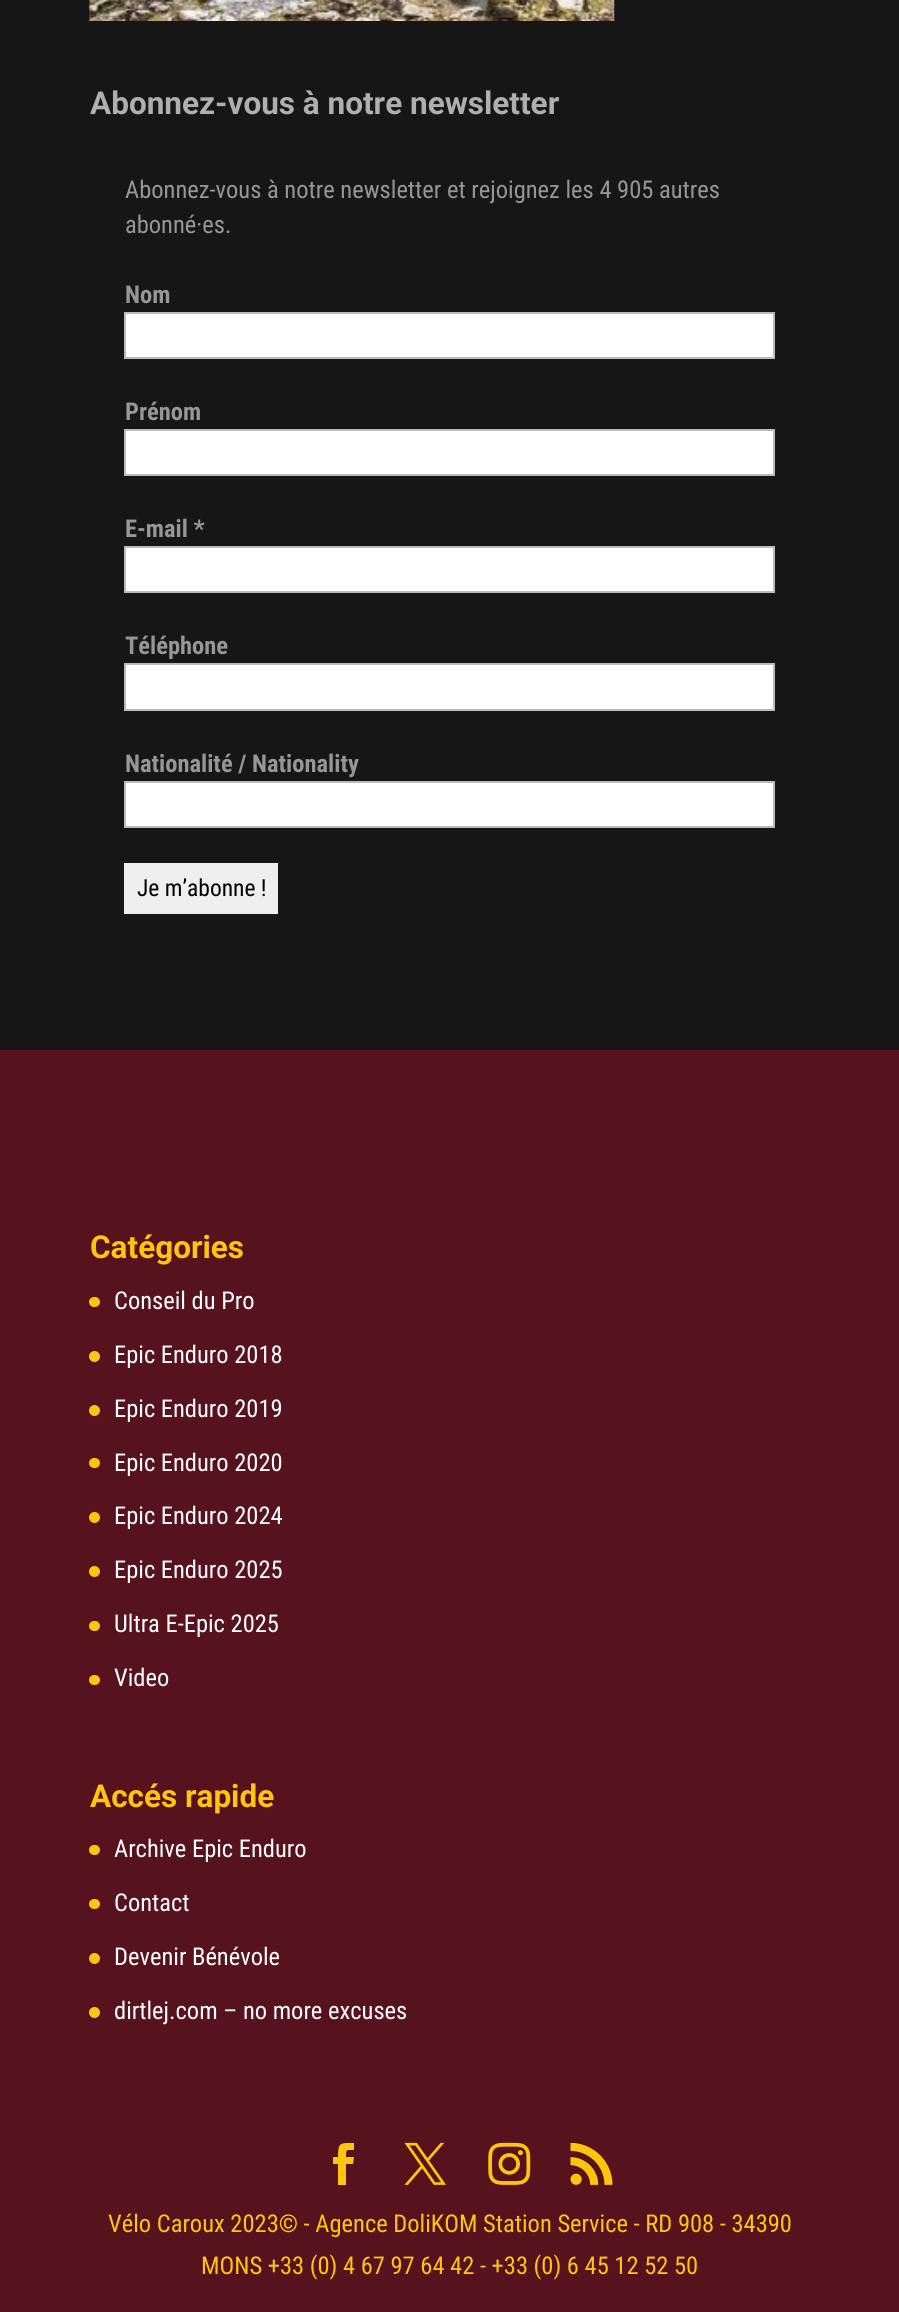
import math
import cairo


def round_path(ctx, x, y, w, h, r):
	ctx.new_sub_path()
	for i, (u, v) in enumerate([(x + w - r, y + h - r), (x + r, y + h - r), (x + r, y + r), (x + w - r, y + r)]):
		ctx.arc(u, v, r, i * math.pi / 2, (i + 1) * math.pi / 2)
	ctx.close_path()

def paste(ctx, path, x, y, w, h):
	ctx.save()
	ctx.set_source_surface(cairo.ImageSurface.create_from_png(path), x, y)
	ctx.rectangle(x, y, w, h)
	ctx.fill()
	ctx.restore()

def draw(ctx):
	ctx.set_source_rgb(0.337, 0.071, 0.114)
	ctx.paint()
	ctx.set_source_rgb(0.086, 0.086, 0.086)
	ctx.rectangle(0, 0, 899, 1050)
	ctx.fill()
	paste(ctx, 'media/1.png', 89, 0, 526, 21)
	ctx.select_font_face('Roboto', cairo.FONT_SLANT_NORMAL, cairo.FONT_WEIGHT_BOLD)
	ctx.set_font_size(31.5)
	ctx.set_source_rgb(0.686, 0.686, 0.686)
	ctx.move_to(90, 114)
	ctx.show_text('Abonnez-vous à notre newsletter')
	ctx.select_font_face('Roboto Condensed')
	ctx.set_font_size(24.5)
	ctx.set_source_rgb(0.588, 0.588, 0.588)
	ctx.move_to(125, 198)
	ctx.show_text('Abonnez-vous à notre newsletter et rejoignez les 4 905 autres')
	ctx.move_to(125, 233)
	ctx.show_text('abonné·es.')
	ctx.select_font_face('Roboto Condensed', cairo.FONT_SLANT_NORMAL, cairo.FONT_WEIGHT_BOLD)
	ctx.move_to(125, 303)
	ctx.show_text('Nom')
	ctx.set_source_rgb(1, 1, 1)
	ctx.rectangle(125, 313, 649, 45)
	ctx.fill_preserve()
	ctx.set_source_rgb(0.733, 0.733, 0.733)
	ctx.stroke()
	ctx.set_source_rgb(0.588, 0.588, 0.588)
	ctx.move_to(125, 420)
	ctx.show_text('Prénom')
	ctx.set_source_rgb(1, 1, 1)
	ctx.rectangle(125, 430, 649, 45)
	ctx.fill_preserve()
	ctx.set_source_rgb(0.733, 0.733, 0.733)
	ctx.stroke()
	ctx.set_source_rgb(0.588, 0.588, 0.588)
	ctx.move_to(125, 537)
	ctx.show_text('E-mail *')
	ctx.set_source_rgb(1, 1, 1)
	ctx.rectangle(125, 547, 649, 45)
	ctx.fill_preserve()
	ctx.set_source_rgb(0.733, 0.733, 0.733)
	ctx.stroke()
	ctx.set_source_rgb(0.588, 0.588, 0.588)
	ctx.move_to(125, 654)
	ctx.show_text('Téléphone')
	ctx.set_source_rgb(1, 1, 1)
	ctx.rectangle(125, 664, 649, 46)
	ctx.fill_preserve()
	ctx.set_source_rgb(0.733, 0.733, 0.733)
	ctx.stroke()
	ctx.set_source_rgb(0.588, 0.588, 0.588)
	ctx.move_to(125, 772)
	ctx.show_text('Nationalité / Nationality')
	ctx.set_source_rgb(1, 1, 1)
	ctx.rectangle(125, 782, 649, 45)
	ctx.fill_preserve()
	ctx.set_source_rgb(0.733, 0.733, 0.733)
	ctx.stroke()
	ctx.set_source_rgb(0.937, 0.937, 0.937)
	ctx.rectangle(124, 863, 154, 51)
	ctx.fill()
	ctx.select_font_face('Roboto Condensed')
	ctx.set_font_size(23.5)
	ctx.set_source_rgb(0, 0, 0)
	ctx.move_to(137, 896)
	ctx.show_text('Je m’abonne !')
	ctx.select_font_face('Roboto', cairo.FONT_SLANT_NORMAL, cairo.FONT_WEIGHT_BOLD)
	ctx.set_font_size(31.5)
	ctx.set_source_rgb(1, 0.769, 0.047)
	ctx.move_to(90, 1258)
	ctx.show_text('Catégories')
	round_path(ctx, 89, 1297, 11, 10, 5)
	ctx.fill()
	ctx.select_font_face('Roboto Condensed')
	ctx.set_font_size(24.5)
	ctx.set_source_rgb(1, 1, 1)
	ctx.move_to(114, 1309)
	ctx.show_text('Conseil du Pro')
	ctx.set_source_rgb(1, 0.769, 0.047)
	ctx.new_path()
	ctx.arc(94.5, 1356.5, 5.5, 0, 2 * math.pi)
	ctx.fill()
	ctx.set_source_rgb(1, 1, 1)
	ctx.move_to(114, 1363)
	ctx.show_text('Epic Enduro 2018')
	ctx.set_source_rgb(1, 0.769, 0.047)
	ctx.new_path()
	ctx.arc(94.5, 1410.5, 5.5, 0, 2 * math.pi)
	ctx.fill()
	ctx.set_source_rgb(1, 1, 1)
	ctx.move_to(114, 1417)
	ctx.show_text('Epic Enduro 2019')
	ctx.set_source_rgb(1, 0.769, 0.047)
	round_path(ctx, 89, 1458, 11, 10, 5)
	ctx.fill()
	ctx.set_source_rgb(1, 1, 1)
	ctx.move_to(114, 1471)
	ctx.show_text('Epic Enduro 2020')
	ctx.set_source_rgb(1, 0.769, 0.047)
	ctx.new_path()
	ctx.arc(94.5, 1517.5, 5.5, 0, 2 * math.pi)
	ctx.fill()
	ctx.set_source_rgb(1, 1, 1)
	ctx.move_to(114, 1524)
	ctx.show_text('Epic Enduro 2024')
	ctx.set_source_rgb(1, 0.769, 0.047)
	ctx.new_path()
	ctx.arc(94.5, 1571.5, 5.5, 0, 2 * math.pi)
	ctx.fill()
	ctx.set_source_rgb(1, 1, 1)
	ctx.move_to(114, 1578)
	ctx.show_text('Epic Enduro 2025')
	ctx.set_source_rgb(1, 0.769, 0.047)
	round_path(ctx, 89, 1621, 11, 10, 5)
	ctx.fill()
	ctx.set_source_rgb(1, 1, 1)
	ctx.move_to(114, 1632)
	ctx.show_text('Ultra E-Epic 2025')
	ctx.set_source_rgb(1, 0.769, 0.047)
	round_path(ctx, 89, 1675, 11, 10, 5)
	ctx.fill()
	ctx.set_source_rgb(1, 1, 1)
	ctx.move_to(114, 1686)
	ctx.show_text('Video')
	ctx.select_font_face('Roboto', cairo.FONT_SLANT_NORMAL, cairo.FONT_WEIGHT_BOLD)
	ctx.set_font_size(31.5)
	ctx.set_source_rgb(1, 0.769, 0.047)
	ctx.move_to(90, 1807)
	ctx.show_text('Accés rapide')
	round_path(ctx, 89, 1845, 11, 10, 5)
	ctx.fill()
	ctx.select_font_face('Roboto Condensed')
	ctx.set_font_size(24.5)
	ctx.set_source_rgb(1, 1, 1)
	ctx.move_to(114, 1857)
	ctx.show_text('Archive Epic Enduro')
	ctx.set_source_rgb(1, 0.769, 0.047)
	round_path(ctx, 89, 1899, 11, 10, 5)
	ctx.fill()
	ctx.set_source_rgb(1, 1, 1)
	ctx.move_to(114, 1911)
	ctx.show_text('Contact')
	ctx.set_source_rgb(1, 0.769, 0.047)
	ctx.new_path()
	ctx.arc(94.5, 1958.5, 5.5, 0, 2 * math.pi)
	ctx.fill()
	ctx.set_source_rgb(1, 1, 1)
	ctx.move_to(114, 1965)
	ctx.show_text('Devenir Bénévole')
	ctx.set_source_rgb(1, 0.769, 0.047)
	ctx.new_path()
	ctx.arc(94.5, 2012.5, 5.5, 0, 2 * math.pi)
	ctx.fill()
	ctx.set_source_rgb(1, 1, 1)
	ctx.move_to(114, 2019)
	ctx.show_text('dirtlej.com – no more excuses')
	ctx.set_source_rgb(1, 0.769, 0.047)
	ctx.new_path()
	ctx.move_to(338, 2185)
	ctx.line_to(346, 2185)
	ctx.line_to(346, 2164)
	ctx.line_to(353, 2164)
	ctx.line_to(354, 2157)
	ctx.line_to(346, 2157)
	ctx.curve_to(346, 2149, 346, 2150, 354, 2150)
	ctx.line_to(354, 2143)
	ctx.curve_to(340, 2143, 338, 2142, 338, 2157)
	ctx.line_to(333, 2157)
	ctx.line_to(333, 2164)
	ctx.line_to(338, 2164)
	ctx.close_path()
	ctx.fill()
	paste(ctx, 'media/2.png', 404, 2142, 42, 43)
	paste(ctx, 'media/3.png', 488, 2142, 43, 43)
	paste(ctx, 'media/4.png', 570, 2142, 43, 43)
	ctx.move_to(108, 2232)
	ctx.show_text('Vélo Caroux 2023© - Agence DoliKOM Station Service - RD 908 - 34390')
	ctx.move_to(201, 2274)
	ctx.show_text('MONS +33 (0) 4 67 97 64 42 - +33 (0) 6 45 12 52 50')


surface = cairo.ImageSurface(cairo.FORMAT_RGB24, 899, 2312)
ctx = cairo.Context(surface)
options = cairo.FontOptions()
options.set_hint_metrics(cairo.HINT_METRICS_OFF)
options.set_hint_style(cairo.HINT_STYLE_NONE)
ctx.set_font_options(options)
ctx.set_miter_limit(4)
draw(ctx)
surface.write_to_png('image.png')
